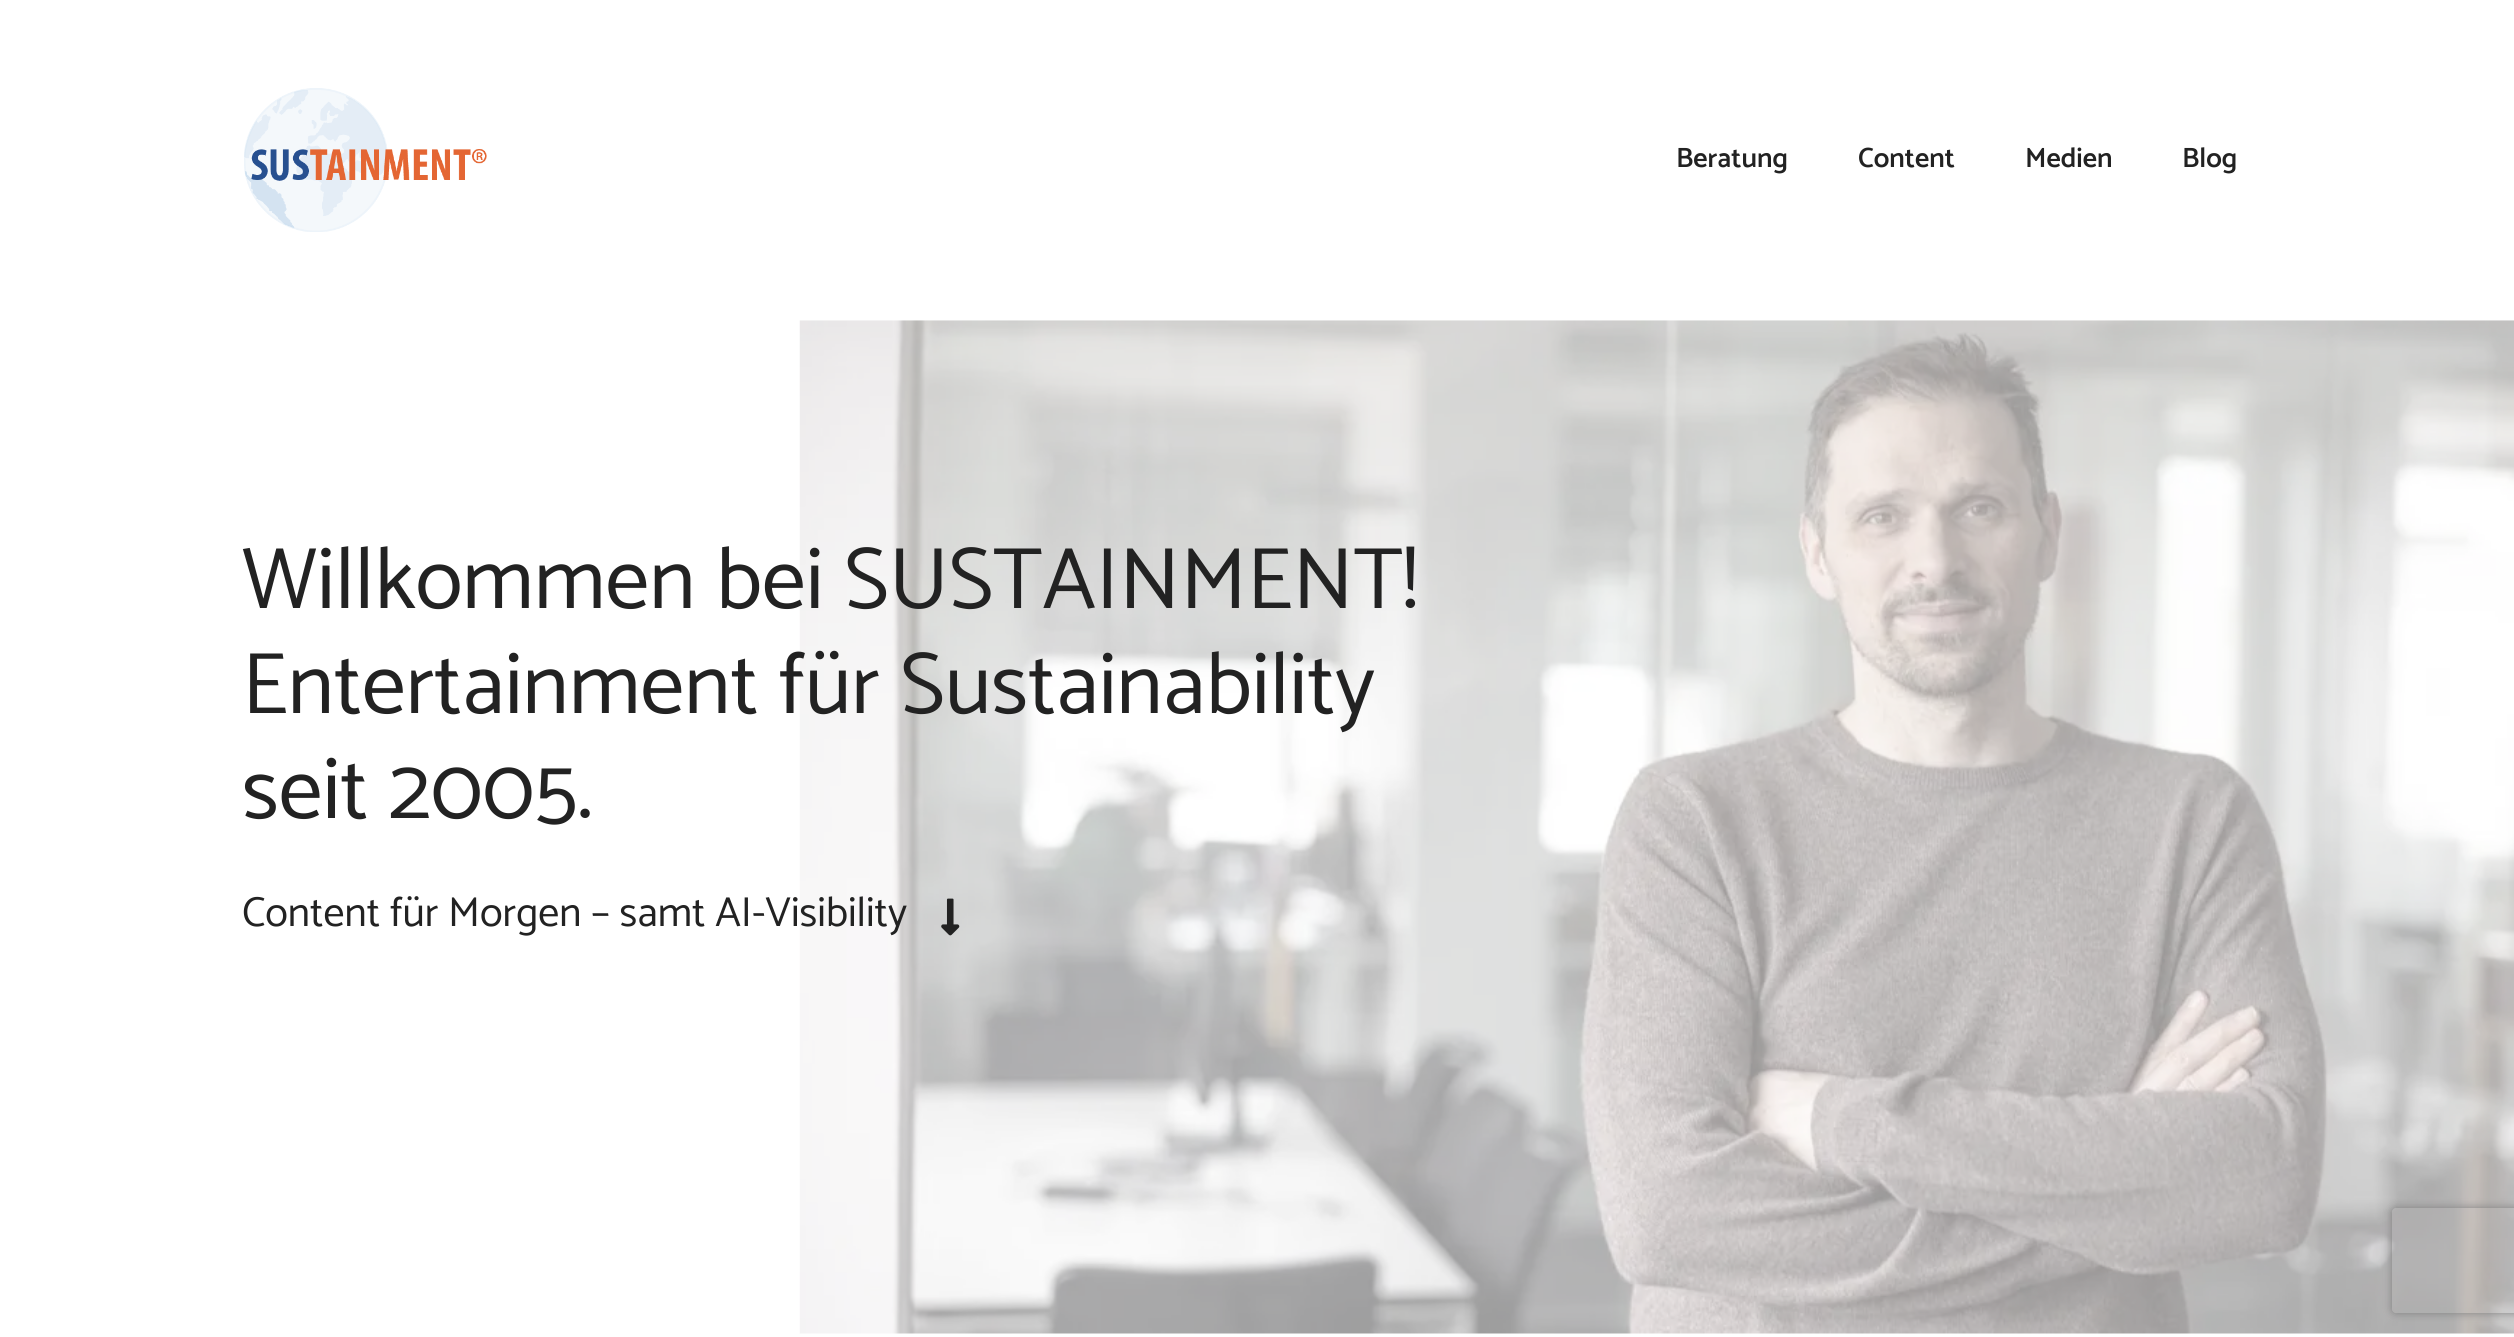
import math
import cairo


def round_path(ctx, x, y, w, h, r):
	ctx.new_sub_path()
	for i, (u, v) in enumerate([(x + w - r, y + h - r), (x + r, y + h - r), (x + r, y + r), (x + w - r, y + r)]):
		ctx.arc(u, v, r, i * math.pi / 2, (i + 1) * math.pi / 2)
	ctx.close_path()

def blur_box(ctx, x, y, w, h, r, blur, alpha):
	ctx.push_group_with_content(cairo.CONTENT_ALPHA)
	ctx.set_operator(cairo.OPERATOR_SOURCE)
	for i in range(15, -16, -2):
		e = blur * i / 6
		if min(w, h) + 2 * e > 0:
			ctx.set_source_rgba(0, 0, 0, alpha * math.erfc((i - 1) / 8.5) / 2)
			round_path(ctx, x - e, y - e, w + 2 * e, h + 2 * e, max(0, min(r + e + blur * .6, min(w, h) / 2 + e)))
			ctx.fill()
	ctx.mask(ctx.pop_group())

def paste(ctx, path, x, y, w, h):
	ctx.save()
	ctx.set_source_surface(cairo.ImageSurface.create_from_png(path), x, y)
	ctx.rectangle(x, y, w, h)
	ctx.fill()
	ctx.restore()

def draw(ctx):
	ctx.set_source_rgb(1, 1, 1)
	ctx.paint()
	paste(ctx, 'media/1.png', 244, 88, 243, 144)
	ctx.select_font_face('Catamaran SemiBold')
	ctx.set_font_size(28)
	ctx.set_source_rgb(0.133, 0.133, 0.133)
	for x, y, s in [
		(1676, 167, 'Beratung'),
		(1858, 167, 'Content'),
		(2025, 167, 'Medien'),
		(2182, 167, 'Blog'),
	]:
		ctx.move_to(x, y)
		ctx.show_text(s)
	paste(ctx, 'media/2.png', 799, 320, 1715, 1014)
	ctx.select_font_face('Catamaran')
	ctx.set_font_size(87.5)
	for x, y, s in [
		(242, 608, 'Willkommen bei SUSTAINMENT!'),
		(242, 713, 'Entertainment für Sustainability'),
		(242, 818, 'seit 2005.'),
	]:
		ctx.move_to(x, y)
		ctx.show_text(s)
	ctx.set_font_size(42)
	ctx.move_to(242, 926)
	ctx.show_text('Content für Morgen – samt AI-Visibility')
	paste(ctx, 'media/3.png', 941, 898, 19, 38)
	ctx.save()
	ctx.set_fill_rule(cairo.FILL_RULE_EVEN_ODD)
	ctx.new_path()
	ctx.move_to(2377, 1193)
	ctx.line_to(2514, 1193)
	ctx.line_to(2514, 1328)
	ctx.line_to(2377, 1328)
	ctx.close_path()
	ctx.move_to(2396, 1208)
	ctx.line_to(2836, 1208)
	ctx.curve_to(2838, 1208, 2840, 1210, 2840, 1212)
	ctx.line_to(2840, 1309)
	ctx.curve_to(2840, 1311, 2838, 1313, 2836, 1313)
	ctx.line_to(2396, 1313)
	ctx.curve_to(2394, 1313, 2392, 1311, 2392, 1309)
	ctx.line_to(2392, 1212)
	ctx.curve_to(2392, 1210, 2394, 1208, 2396, 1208)
	ctx.close_path()
	ctx.clip()
	ctx.set_source_rgb(0.502, 0.502, 0.502)
	blur_box(ctx, 2392, 1208, 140, 105, 4, 4.5, 1)
	ctx.restore()


surface = cairo.ImageSurface(cairo.FORMAT_RGB24, 2514, 1337)
ctx = cairo.Context(surface)
options = cairo.FontOptions()
options.set_hint_metrics(cairo.HINT_METRICS_OFF)
options.set_hint_style(cairo.HINT_STYLE_NONE)
ctx.set_font_options(options)
ctx.set_miter_limit(4)
draw(ctx)
surface.write_to_png('image.png')
